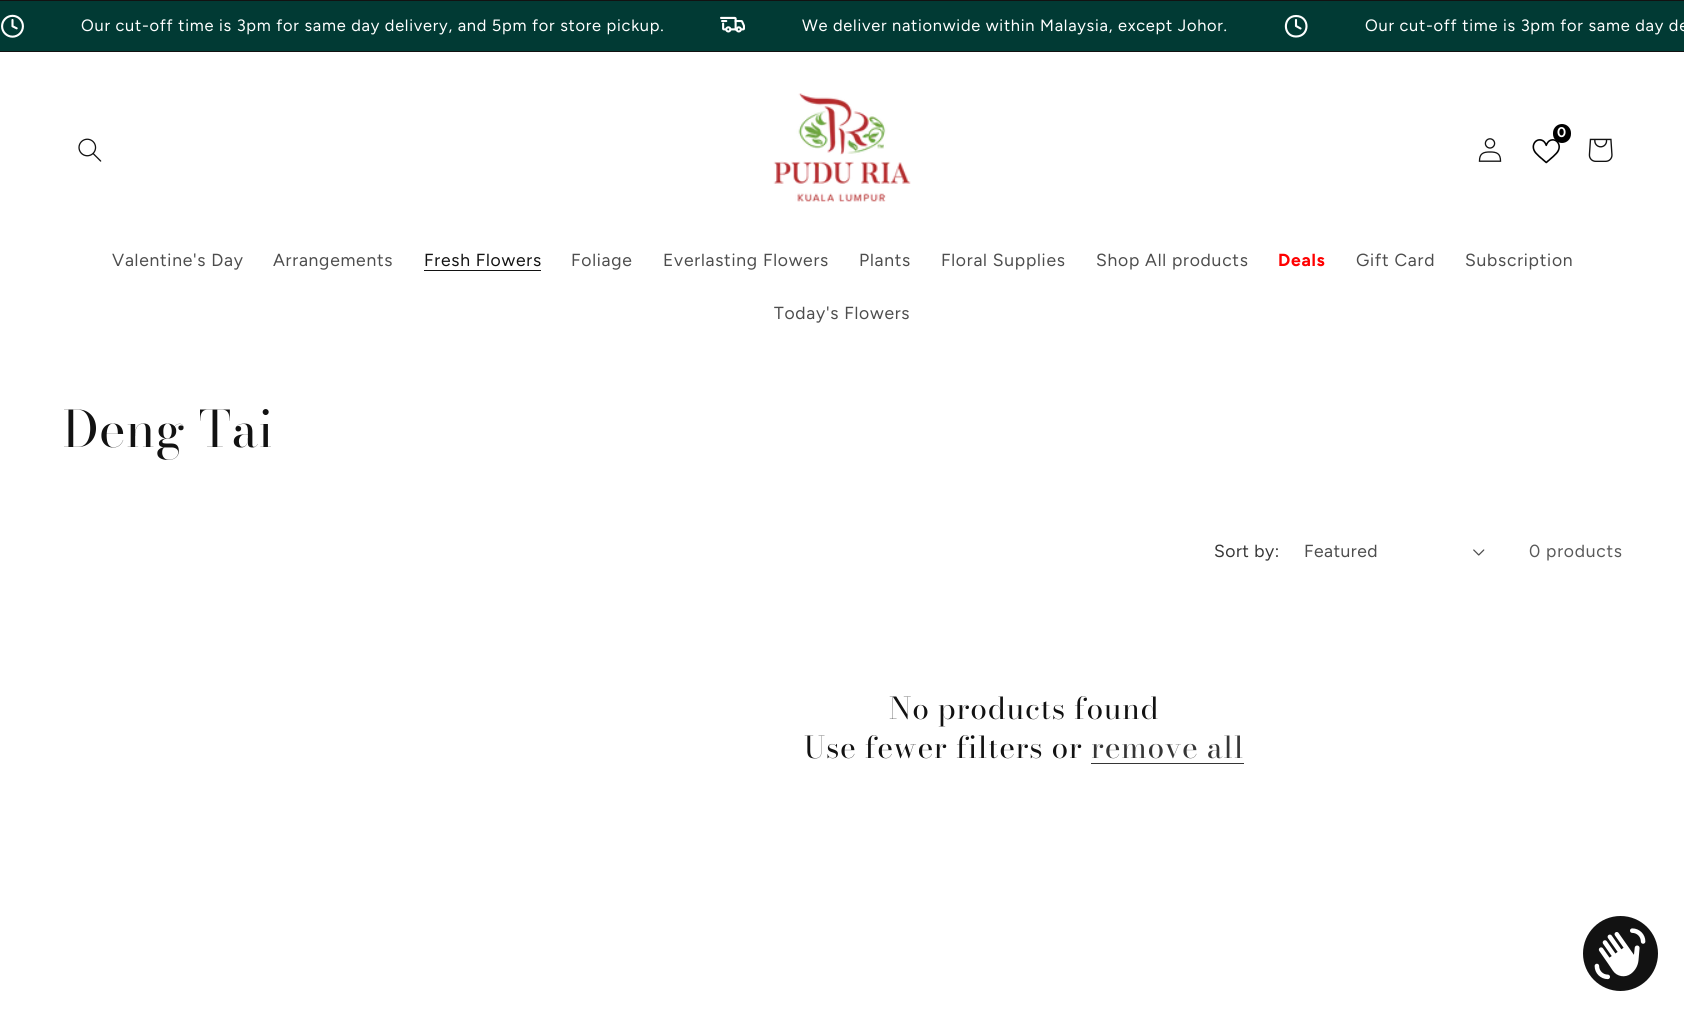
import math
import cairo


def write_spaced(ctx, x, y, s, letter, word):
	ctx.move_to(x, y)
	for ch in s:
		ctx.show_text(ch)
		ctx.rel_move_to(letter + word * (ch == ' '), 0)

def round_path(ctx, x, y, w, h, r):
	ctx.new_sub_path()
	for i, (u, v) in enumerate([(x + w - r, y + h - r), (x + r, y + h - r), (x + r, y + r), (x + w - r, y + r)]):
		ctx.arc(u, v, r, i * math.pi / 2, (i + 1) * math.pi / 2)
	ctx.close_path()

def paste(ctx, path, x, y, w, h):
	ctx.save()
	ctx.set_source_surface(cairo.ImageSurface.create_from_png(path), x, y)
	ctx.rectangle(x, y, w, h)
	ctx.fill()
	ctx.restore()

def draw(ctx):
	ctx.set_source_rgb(1, 1, 1)
	ctx.paint()
	ctx.set_source_rgb(0.004, 0.227, 0.204)
	ctx.rectangle(0, 1, 1684, 50)
	ctx.fill()
	ctx.set_source_rgb(0.071, 0.071, 0.071)
	ctx.rectangle(0, 0, 1684, 1)
	ctx.rectangle(0, 51, 1684, 1)
	ctx.fill()
	paste(ctx, 'media/1.png', 1, 14, 23, 24)
	ctx.select_font_face('Figtree')
	ctx.set_font_size(16.4)
	ctx.set_source_rgb(1, 1, 1)
	write_spaced(ctx, 81, 31, 'Our cut-off time is 3pm for same day delivery, and 5pm for store pickup.', 0.75, 0)
	paste(ctx, 'media/2.png', 720, 16, 25, 17)
	write_spaced(ctx, 802, 31, 'We deliver nationwide within Malaysia, except Johor.', 0.75, 0)
	ctx.new_path()
	ctx.move_to(1296, 36.5)
	ctx.curve_to(1310, 36.5, 1310, 16, 1296, 16)
	ctx.curve_to(1282.5, 16, 1282.5, 36.5, 1296, 36.5)
	ctx.close_path()
	ctx.move_to(1296, 20)
	ctx.line_to(1296, 26)
	ctx.line_to(1300.5, 28.5)
	ctx.set_line_width(2.1)
	ctx.set_line_cap(cairo.LINE_CAP_ROUND)
	ctx.set_line_join(cairo.LINE_JOIN_ROUND)
	ctx.stroke()
	write_spaced(ctx, 1365, 31, 'Our cut-off time is 3pm for same day de', 0.75, 0)
	paste(ctx, 'media/3.png', 773, 93, 138, 109)
	paste(ctx, 'media/4.png', 1532, 139, 28, 25)
	ctx.set_source_rgb(0, 0, 0)
	round_path(ctx, 1553, 124, 18, 19, 9)
	ctx.fill()
	ctx.select_font_face('Figtree', cairo.FONT_SLANT_NORMAL, cairo.FONT_WEIGHT_BOLD)
	ctx.set_font_size(14)
	ctx.set_source_rgb(1, 1, 1)
	write_spaced(ctx, 1557, 137, '0', 0.75, 0)
	paste(ctx, 'media/5.png', 1478, 138, 24, 24)
	paste(ctx, 'media/6.png', 1588, 138, 25, 24)
	paste(ctx, 'media/7.png', 78, 138, 24, 24)
	ctx.select_font_face('Figtree')
	ctx.set_font_size(17.5)
	ctx.set_source_rgb(0.302, 0.302, 0.302)
	write_spaced(ctx, 112, 266, 'Valentine\'s Day', 0.75, 0)
	write_spaced(ctx, 273, 266, 'Arrangements', 0.75, 0)
	ctx.set_source_rgb(0.071, 0.071, 0.071)
	write_spaced(ctx, 424, 266, 'Fresh Flowers', 0.75, 0)
	ctx.rectangle(424, 270, 117, 1)
	ctx.fill()
	ctx.set_source_rgb(0.302, 0.302, 0.302)
	for x, y, s in [
		(571, 266, 'Foliage'),
		(663, 266, 'Everlasting Flowers'),
		(859, 266, 'Plants'),
		(941, 266, 'Floral Supplies'),
		(1096, 266, 'Shop All products'),
	]:
		write_spaced(ctx, x, y, s, 0.75, 0)
	ctx.select_font_face('Figtree', cairo.FONT_SLANT_NORMAL, cairo.FONT_WEIGHT_BOLD)
	ctx.set_source_rgb(1, 0, 0)
	write_spaced(ctx, 1278, 266, 'Deals', 0.75, 0)
	ctx.select_font_face('Figtree')
	ctx.set_source_rgb(0.302, 0.302, 0.302)
	for x, y, s in [
		(1356, 266, 'Gift Card'),
		(1465, 266, 'Subscription'),
		(774, 319, 'Today\'s Flowers'),
	]:
		write_spaced(ctx, x, y, s, 0.75, 0)
	ctx.select_font_face('Bodoni Moda')
	ctx.set_font_size(50)
	ctx.set_source_rgb(0.071, 0.071, 0.071)
	write_spaced(ctx, 63, 447, 'Deng Tai', 0.75, 0)
	ctx.select_font_face('Figtree')
	ctx.set_font_size(17.5)
	ctx.set_source_rgb(0.212, 0.212, 0.212)
	write_spaced(ctx, 1214, 557, 'Sort by:', 0.5, 0)
	ctx.set_source_rgb(0.302, 0.302, 0.302)
	write_spaced(ctx, 1304, 557, 'Featured', 0.5, 0)
	paste(ctx, 'media/8.png', 1473, 549, 12, 7)
	ctx.set_source_rgb(0.349, 0.349, 0.349)
	write_spaced(ctx, 1529, 557, '0 products', 0.75, 0)
	ctx.select_font_face('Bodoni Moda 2')
	ctx.set_font_size(30)
	ctx.set_source_rgb(0.071, 0.071, 0.071)
	write_spaced(ctx, 889, 719, 'No products found', 0.75, 0)
	write_spaced(ctx, 804, 758, 'Use fewer filters or', 0.75, 0)
	ctx.set_source_rgb(0.212, 0.212, 0.212)
	write_spaced(ctx, 1091, 758, 'remove all', 0.75, 0)
	ctx.rectangle(1091, 763, 153, 1)
	ctx.fill()
	ctx.set_source_rgb(0.071, 0.071, 0.071)
	ctx.arc(1620.5, 953.5, 37.5, 0, 2 * math.pi)
	ctx.fill()
	paste(ctx, 'media/9.png', 1594, 928, 52, 52)


surface = cairo.ImageSurface(cairo.FORMAT_RGB24, 1684, 1017)
ctx = cairo.Context(surface)
options = cairo.FontOptions()
options.set_hint_metrics(cairo.HINT_METRICS_OFF)
options.set_hint_style(cairo.HINT_STYLE_NONE)
ctx.set_font_options(options)
ctx.set_miter_limit(4)
draw(ctx)
surface.write_to_png('image.png')
